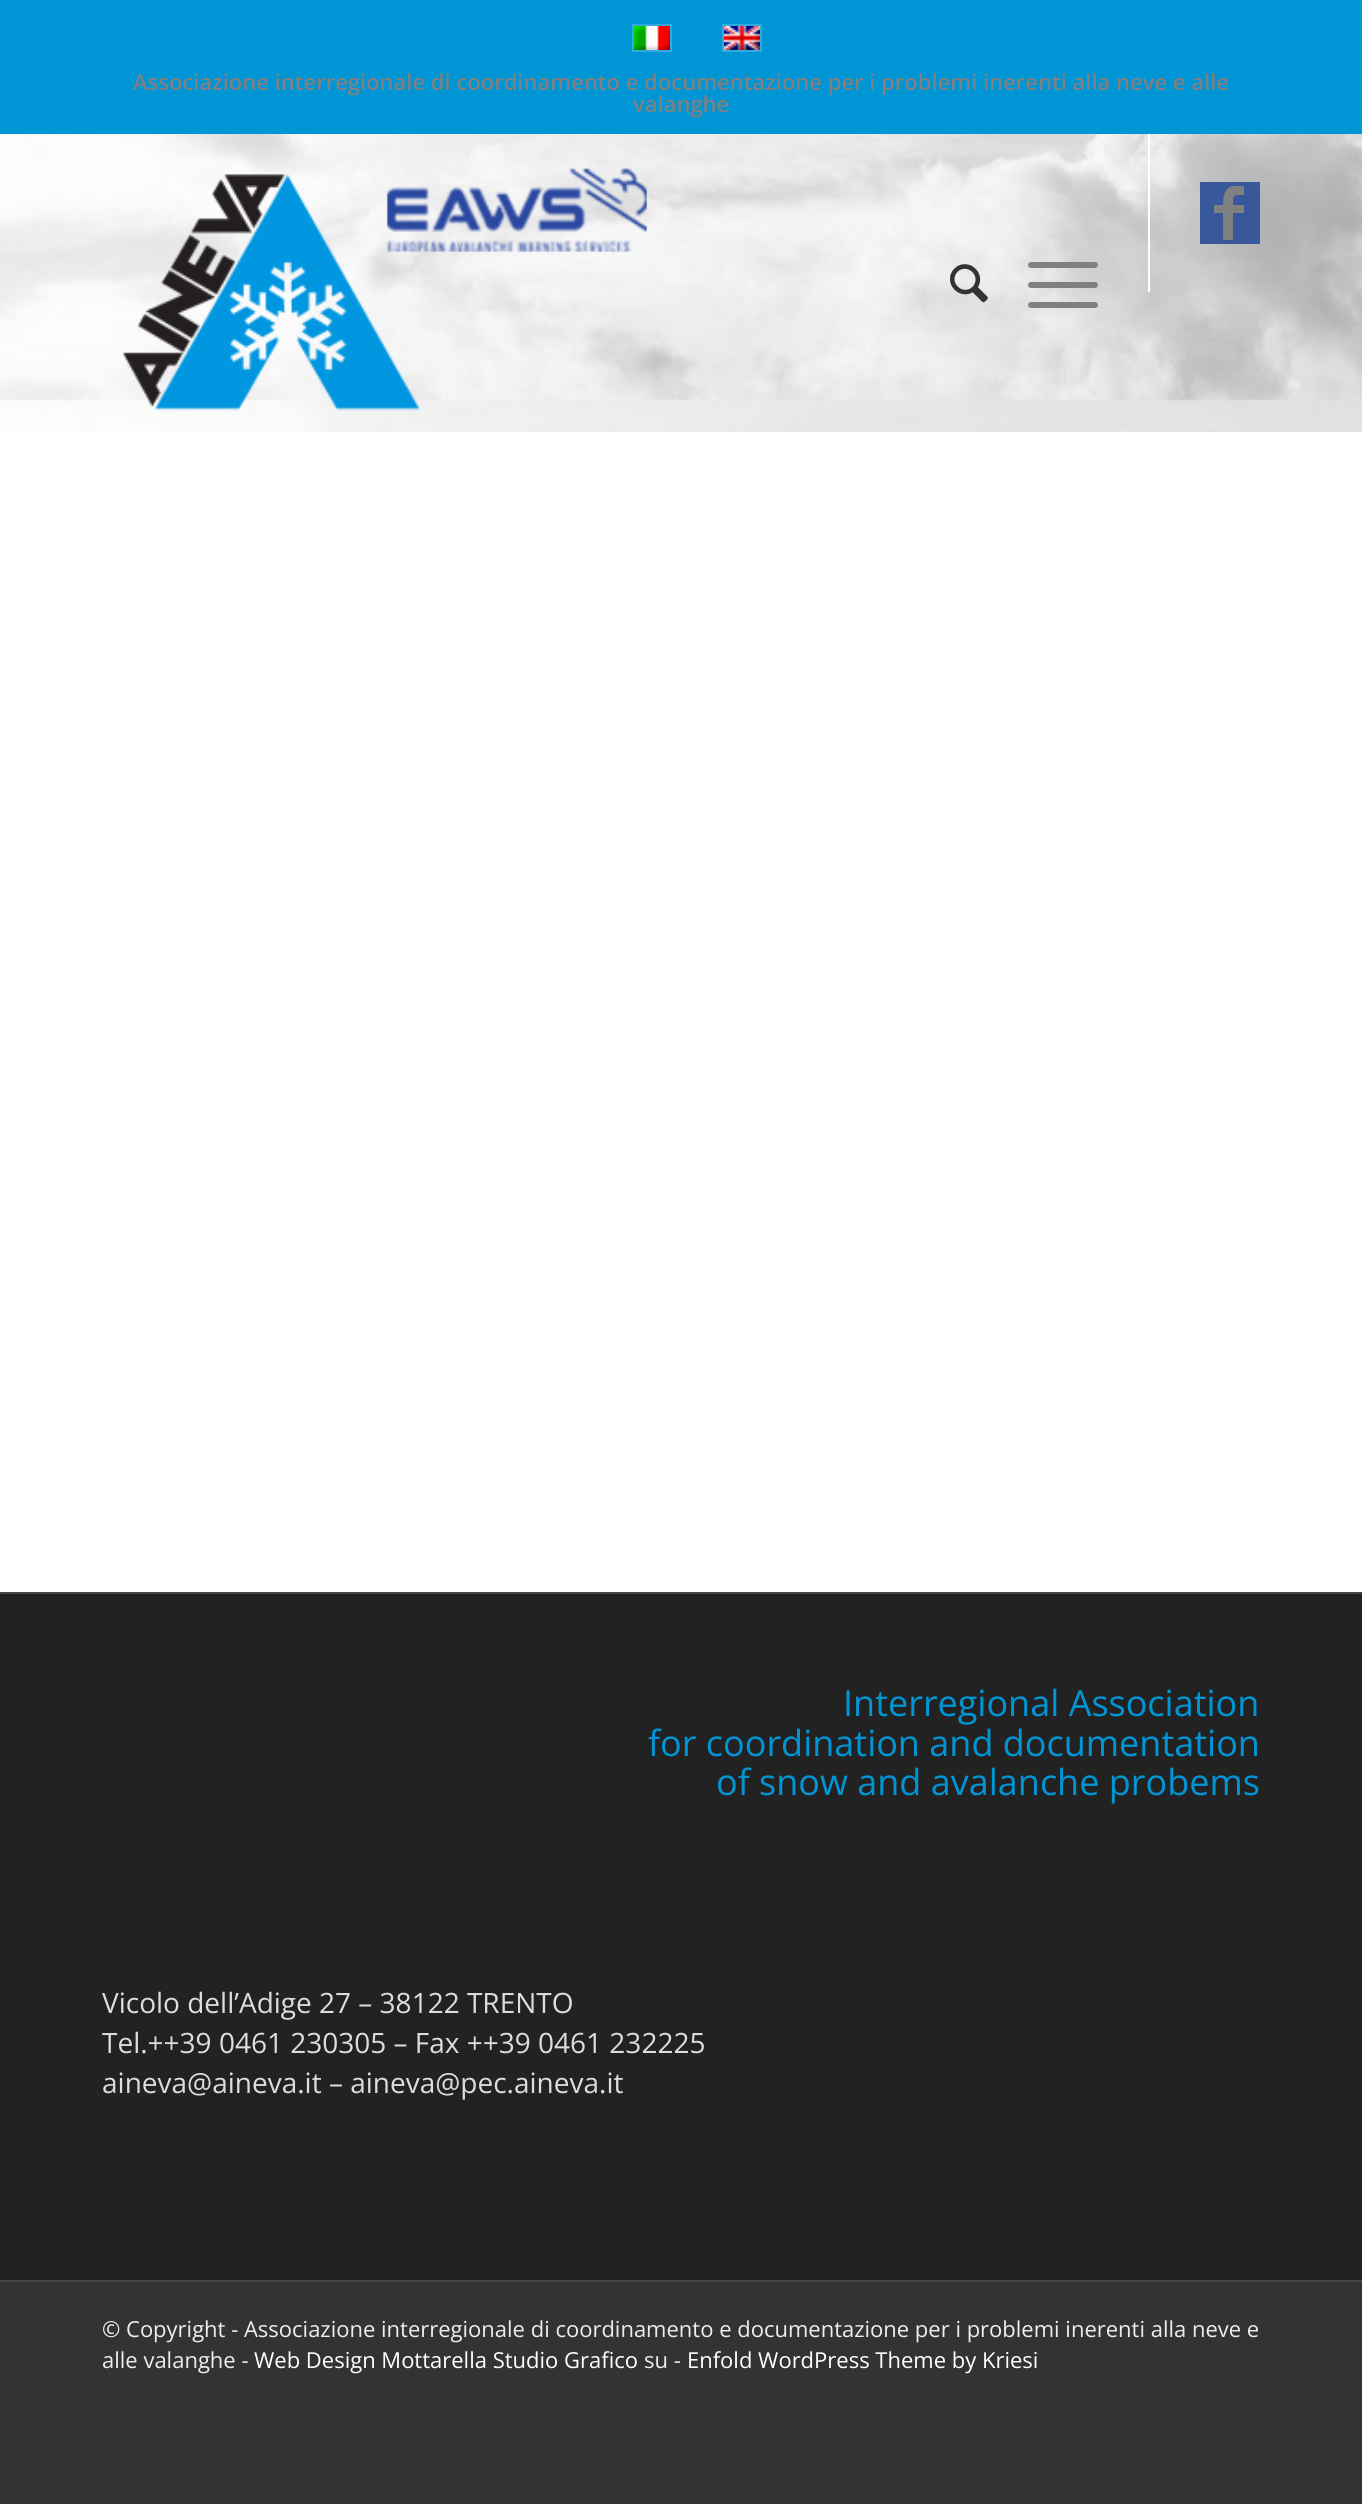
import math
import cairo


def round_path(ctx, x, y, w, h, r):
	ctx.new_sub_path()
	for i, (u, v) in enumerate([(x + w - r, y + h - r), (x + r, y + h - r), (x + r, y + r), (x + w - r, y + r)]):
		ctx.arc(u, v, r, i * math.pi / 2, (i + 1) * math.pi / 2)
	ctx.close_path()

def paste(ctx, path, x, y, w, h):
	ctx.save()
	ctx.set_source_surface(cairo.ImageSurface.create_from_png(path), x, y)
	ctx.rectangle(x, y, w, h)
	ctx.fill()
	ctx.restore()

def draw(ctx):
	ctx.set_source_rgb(0.2, 0.2, 0.2)
	ctx.paint()
	paste(ctx, 'media/5.png', 0, 134, 1362, 298)
	ctx.set_source_rgb(1, 1, 1)
	ctx.rectangle(1148, 132, 2, 160)
	ctx.fill()
	ctx.set_source_rgb(0, 0.584, 0.835)
	ctx.rectangle(0, 0, 1362, 134)
	ctx.fill()
	ctx.rectangle(633, 25, 38, 26)
	ctx.set_source_rgb(0.2, 0.667, 0.867)
	ctx.stroke()
	paste(ctx, 'media/1.png', 634, 26, 36, 24)
	ctx.rectangle(723, 25, 38, 26)
	ctx.stroke()
	paste(ctx, 'media/2.png', 724, 26, 36, 24)
	ctx.select_font_face('Open Sans SemiBold')
	ctx.set_font_size(22)
	ctx.set_source_rgb(0.502, 0.502, 0.502)
	ctx.move_to(133, 90)
	ctx.show_text('Associazione interregionale di coordinamento e documentazione per i problemi inerenti alla neve e alle')
	ctx.move_to(633, 112)
	ctx.show_text('valanghe')
	paste(ctx, 'media/3.png', 122, 168, 526, 243)
	paste(ctx, 'media/4.png', 950, 264, 38, 39)
	round_path(ctx, 1028, 282, 70, 6, 3)
	ctx.fill()
	round_path(ctx, 1028, 262, 70, 6, 3)
	ctx.fill()
	round_path(ctx, 1028, 302, 70, 6, 3)
	ctx.fill()
	ctx.set_source_rgb(0.216, 0.345, 0.608)
	ctx.rectangle(1200, 182, 60, 62)
	ctx.fill()
	ctx.set_source_rgb(0.502, 0.502, 0.502)
	ctx.new_path()
	ctx.move_to(1244, 195)
	ctx.curve_to(1233, 195, 1233, 194, 1233, 205)
	ctx.line_to(1244, 205)
	ctx.line_to(1244, 213)
	ctx.line_to(1233, 213)
	ctx.line_to(1233, 240)
	ctx.line_to(1223, 240)
	ctx.line_to(1223, 213)
	ctx.line_to(1214, 213)
	ctx.line_to(1214, 205)
	ctx.line_to(1223, 205)
	ctx.curve_to(1223, 197, 1224, 188, 1233, 186)
	ctx.line_to(1244, 186)
	ctx.close_path()
	ctx.fill()
	ctx.set_source_rgb(1, 1, 1)
	ctx.rectangle(0, 432, 1362, 1160)
	ctx.fill()
	ctx.set_source_rgb(0.133, 0.133, 0.133)
	ctx.rectangle(0, 1594, 1362, 686)
	ctx.fill()
	ctx.set_source_rgb(0.267, 0.267, 0.267)
	ctx.rectangle(0, 1592, 1362, 2)
	ctx.fill()
	ctx.select_font_face('Open Sans')
	ctx.set_font_size(36)
	ctx.set_source_rgb(0, 0.584, 0.835)
	for x, y, s in [
		(843, 1716, 'Interregional Association'),
		(648, 1756, 'for coordination and documentation'),
		(716, 1795, 'of snow and avalanche probems'),
	]:
		ctx.move_to(x, y)
		ctx.show_text(s)
	ctx.set_font_size(28)
	ctx.set_source_rgb(0.867, 0.867, 0.867)
	for x, y, s in [
		(102, 2013, 'Vicolo dell’Adige 27 – 38122 TRENTO'),
		(102, 2053, 'Tel.++39 0461 230305 – Fax ++39 0461 232225'),
		(102, 2093, 'aineva@aineva.it – aineva@pec.aineva.it'),
	]:
		ctx.move_to(x, y)
		ctx.show_text(s)
	ctx.set_source_rgb(0.267, 0.267, 0.267)
	ctx.rectangle(0, 2280, 1362, 2)
	ctx.fill()
	ctx.set_font_size(22)
	ctx.set_source_rgb(0.933, 0.933, 0.933)
	ctx.move_to(102, 2337)
	ctx.show_text('© Copyright - Associazione interregionale di coordinamento e documentazione per i problemi inerenti alla neve e')
	ctx.move_to(102, 2368)
	ctx.show_text('alle valanghe -')
	ctx.set_source_rgb(1, 1, 1)
	ctx.move_to(254, 2368)
	ctx.show_text('Web Design Mottarella Studio Grafico')
	ctx.set_source_rgb(0.933, 0.933, 0.933)
	ctx.move_to(644, 2368)
	ctx.show_text('su -')
	ctx.set_source_rgb(1, 1, 1)
	ctx.move_to(687, 2368)
	ctx.show_text('Enfold WordPress Theme by Kriesi')


surface = cairo.ImageSurface(cairo.FORMAT_RGB24, 1362, 2504)
ctx = cairo.Context(surface)
options = cairo.FontOptions()
options.set_hint_metrics(cairo.HINT_METRICS_OFF)
options.set_hint_style(cairo.HINT_STYLE_NONE)
ctx.set_font_options(options)
ctx.set_miter_limit(4)
draw(ctx)
surface.write_to_png('image.png')
